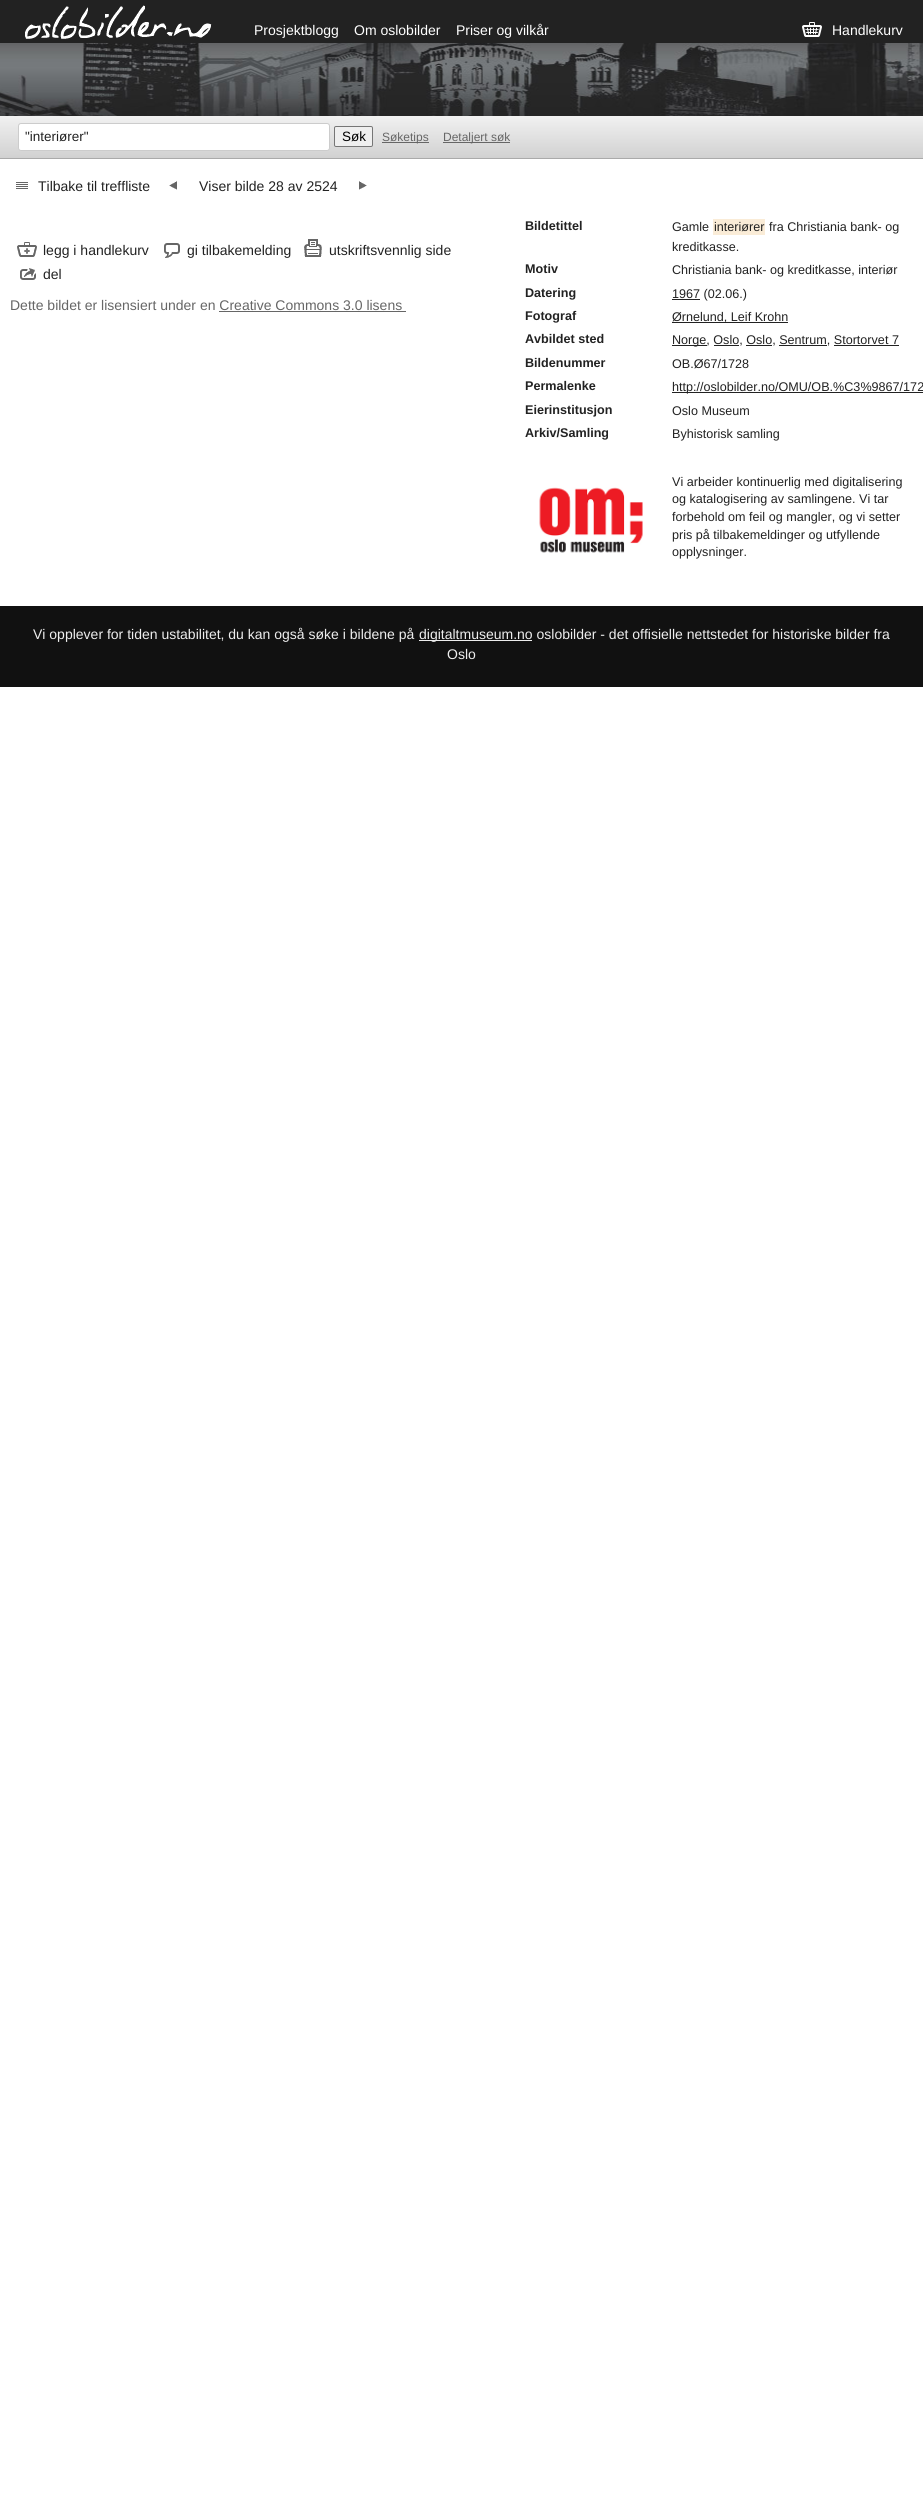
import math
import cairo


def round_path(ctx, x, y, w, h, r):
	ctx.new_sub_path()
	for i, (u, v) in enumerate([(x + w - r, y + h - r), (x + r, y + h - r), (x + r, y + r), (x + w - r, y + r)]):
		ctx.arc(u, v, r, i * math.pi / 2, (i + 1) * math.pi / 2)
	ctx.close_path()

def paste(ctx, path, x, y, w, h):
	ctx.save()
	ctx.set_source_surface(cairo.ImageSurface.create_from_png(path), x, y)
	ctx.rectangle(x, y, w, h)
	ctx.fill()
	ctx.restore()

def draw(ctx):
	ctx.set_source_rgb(1, 1, 1)
	ctx.paint()
	ctx.set_source_rgb(0.133, 0.133, 0.133)
	ctx.rectangle(0, 0, 923, 43)
	ctx.fill()
	paste(ctx, 'media/1.png', 0, 43, 923, 73)
	paste(ctx, 'media/2.png', 25, 5, 187, 34)
	ctx.select_font_face('Liberation Sans')
	ctx.set_font_size(14)
	ctx.set_source_rgb(1, 1, 1)
	for x, y, s in [
		(254, 35, 'Prosjektblogg'),
		(354, 35, 'Om oslobilder'),
		(456, 35, 'Priser og vilkår'),
	]:
		ctx.move_to(x, y)
		ctx.show_text(s)
	paste(ctx, 'media/3.png', 802, 22, 20, 15)
	ctx.move_to(832, 35)
	ctx.show_text('Handlekurv')
	gradient = cairo.LinearGradient(462, 116, 462, 158)
	gradient.add_color_stop_rgba(0, 0.945, 0.945, 0.945, 1)
	gradient.add_color_stop_rgba(1, 0.82, 0.82, 0.82, 1)
	ctx.set_source(gradient)
	ctx.rectangle(0, 116, 923, 42)
	ctx.fill()
	ctx.set_source_rgb(0.667, 0.667, 0.667)
	ctx.rectangle(0, 158, 923, 1)
	ctx.fill()
	ctx.set_source_rgb(1, 1, 1)
	round_path(ctx, 18.5, 123.5, 311, 27, 2.5)
	ctx.fill_preserve()
	ctx.set_source_rgb(0.8, 0.8, 0.8)
	ctx.set_line_width(1)
	ctx.stroke()
	ctx.set_font_size(13.5)
	ctx.set_source_rgb(0.133, 0.133, 0.133)
	ctx.move_to(25, 141)
	ctx.show_text('"interiører"')
	ctx.set_source_rgb(0.937, 0.937, 0.937)
	round_path(ctx, 334.5, 126.5, 38, 20, 1.5)
	ctx.fill_preserve()
	ctx.set_source_rgb(0.463, 0.463, 0.463)
	ctx.stroke()
	ctx.set_source_rgb(0, 0, 0)
	ctx.move_to(342, 141)
	ctx.show_text('Søk')
	ctx.set_source_rgb(0.4, 0.4, 0.4)
	ctx.rectangle(382, 142, 47, 1)
	ctx.fill()
	ctx.set_font_size(12)
	ctx.move_to(382, 141)
	ctx.show_text('Søketips')
	ctx.rectangle(443, 142, 67, 1)
	ctx.fill()
	ctx.move_to(443, 141)
	ctx.show_text('Detaljert søk')
	paste(ctx, 'media/4.png', 16, 182, 12, 7)
	ctx.set_font_size(14)
	ctx.set_source_rgb(0.133, 0.133, 0.133)
	ctx.move_to(38, 191)
	ctx.show_text('Tilbake til treffliste')
	paste(ctx, 'media/5.png', 169, 181, 8, 9)
	ctx.move_to(199, 191)
	ctx.show_text('Viser bilde 28 av 2524')
	paste(ctx, 'media/6.png', 359, 181, 8, 9)
	paste(ctx, 'media/7.png', 17, 242, 20, 15)
	ctx.move_to(43, 255)
	ctx.show_text('legg i handlekurv')
	paste(ctx, 'media/8.png', 164, 243, 16, 15)
	ctx.move_to(187, 255)
	ctx.show_text('gi tilbakemelding')
	paste(ctx, 'media/9.png', 304, 239, 18, 18)
	ctx.move_to(329, 255)
	ctx.show_text('utskriftsvennlig side')
	paste(ctx, 'media/10.png', 20, 268, 16, 12)
	ctx.move_to(43, 279)
	ctx.show_text('del')
	ctx.set_source_rgb(0.4, 0.4, 0.4)
	ctx.move_to(10, 310)
	ctx.show_text('Dette bildet er lisensiert under en Creative Commons 3.0 lisens')
	ctx.rectangle(219, 311, 187, 1)
	ctx.fill()
	ctx.select_font_face('Liberation Sans', cairo.FONT_SLANT_NORMAL, cairo.FONT_WEIGHT_BOLD)
	ctx.set_font_size(12.6)
	ctx.set_source_rgb(0.133, 0.133, 0.133)
	ctx.move_to(525, 230)
	ctx.show_text('Bildetittel')
	ctx.select_font_face('Liberation Sans')
	ctx.move_to(672, 231)
	ctx.show_text('Gamle')
	ctx.set_source_rgb(0.98, 0.922, 0.843)
	ctx.rectangle(713, 219, 52, 16)
	ctx.fill()
	ctx.set_source_rgb(0.133, 0.133, 0.133)
	for x, y, s in [
		(714, 231, 'interiører'),
		(769, 231, 'fra Christiania bank- og'),
		(672, 251, 'kreditkasse.'),
	]:
		ctx.move_to(x, y)
		ctx.show_text(s)
	ctx.select_font_face('Liberation Sans', cairo.FONT_SLANT_NORMAL, cairo.FONT_WEIGHT_BOLD)
	ctx.move_to(525, 273)
	ctx.show_text('Motiv')
	ctx.select_font_face('Liberation Sans')
	ctx.move_to(672, 274)
	ctx.show_text('Christiania bank- og kreditkasse, interiør')
	ctx.select_font_face('Liberation Sans', cairo.FONT_SLANT_NORMAL, cairo.FONT_WEIGHT_BOLD)
	ctx.move_to(525, 297)
	ctx.show_text('Datering')
	ctx.rectangle(672, 299, 28, 1)
	ctx.fill()
	ctx.select_font_face('Liberation Sans')
	ctx.move_to(672, 298)
	ctx.show_text('1967 (02.06.)')
	ctx.select_font_face('Liberation Sans', cairo.FONT_SLANT_NORMAL, cairo.FONT_WEIGHT_BOLD)
	ctx.move_to(525, 320)
	ctx.show_text('Fotograf')
	ctx.rectangle(672, 322, 116, 1)
	ctx.fill()
	ctx.select_font_face('Liberation Sans')
	ctx.move_to(672, 321)
	ctx.show_text('Ørnelund, Leif Krohn')
	ctx.select_font_face('Liberation Sans', cairo.FONT_SLANT_NORMAL, cairo.FONT_WEIGHT_BOLD)
	ctx.move_to(525, 343)
	ctx.show_text('Avbildet sted')
	ctx.rectangle(672, 345, 35, 1)
	ctx.fill()
	ctx.select_font_face('Liberation Sans')
	ctx.move_to(672, 344)
	ctx.show_text('Norge, Oslo, Oslo, Sentrum, Stortorvet 7')
	ctx.rectangle(714, 345, 25, 1)
	ctx.rectangle(746, 345, 26, 1)
	ctx.rectangle(779, 345, 48, 1)
	ctx.rectangle(834, 345, 65, 1)
	ctx.fill()
	ctx.select_font_face('Liberation Sans', cairo.FONT_SLANT_NORMAL, cairo.FONT_WEIGHT_BOLD)
	ctx.move_to(525, 367)
	ctx.show_text('Bildenummer')
	ctx.select_font_face('Liberation Sans')
	ctx.move_to(672, 368)
	ctx.show_text('OB.Ø67/1728')
	ctx.select_font_face('Liberation Sans', cairo.FONT_SLANT_NORMAL, cairo.FONT_WEIGHT_BOLD)
	ctx.move_to(525, 390)
	ctx.show_text('Permalenke')
	ctx.rectangle(672, 392, 251, 1)
	ctx.fill()
	ctx.select_font_face('Liberation Sans')
	ctx.move_to(672, 391)
	ctx.show_text('http://oslobilder.no/OMU/OB.%C3%9867/172')
	ctx.select_font_face('Liberation Sans', cairo.FONT_SLANT_NORMAL, cairo.FONT_WEIGHT_BOLD)
	ctx.move_to(525, 414)
	ctx.show_text('Eierinstitusjon')
	ctx.select_font_face('Liberation Sans')
	ctx.move_to(672, 415)
	ctx.show_text('Oslo Museum')
	ctx.select_font_face('Liberation Sans', cairo.FONT_SLANT_NORMAL, cairo.FONT_WEIGHT_BOLD)
	ctx.move_to(525, 437)
	ctx.show_text('Arkiv/Samling')
	ctx.select_font_face('Liberation Sans')
	ctx.move_to(672, 438)
	ctx.show_text('Byhistorisk samling')
	paste(ctx, 'media/11.png', 539, 487, 104, 66)
	for x, y, s in [
		(672, 486, 'Vi arbeider kontinuerlig med digitalisering'),
		(672, 503, 'og katalogisering av samlingene. Vi tar'),
		(672, 521, 'forbehold om feil og mangler, og vi setter'),
		(672, 539, 'pris på tilbakemeldinger og utfyllende'),
		(672, 556, 'opplysninger.'),
	]:
		ctx.move_to(x, y)
		ctx.show_text(s)
	ctx.set_source_rgb(0.067, 0.067, 0.067)
	ctx.rectangle(0, 606, 923, 81)
	ctx.fill()
	ctx.set_font_size(14)
	ctx.set_source_rgb(0.933, 0.933, 0.933)
	ctx.move_to(33, 639)
	ctx.show_text('Vi opplever for tiden ustabilitet, du kan også søke i bildene på')
	ctx.rectangle(419, 640, 113, 1)
	ctx.fill()
	ctx.move_to(419, 639)
	ctx.show_text('digitaltmuseum.no oslobilder - det offisielle nettstedet for historiske bilder fra')
	ctx.move_to(447, 659)
	ctx.show_text('Oslo')


surface = cairo.ImageSurface(cairo.FORMAT_RGB24, 923, 2497)
ctx = cairo.Context(surface)
options = cairo.FontOptions()
options.set_hint_metrics(cairo.HINT_METRICS_OFF)
options.set_hint_style(cairo.HINT_STYLE_NONE)
ctx.set_font_options(options)
ctx.set_miter_limit(4)
draw(ctx)
surface.write_to_png('image.png')
